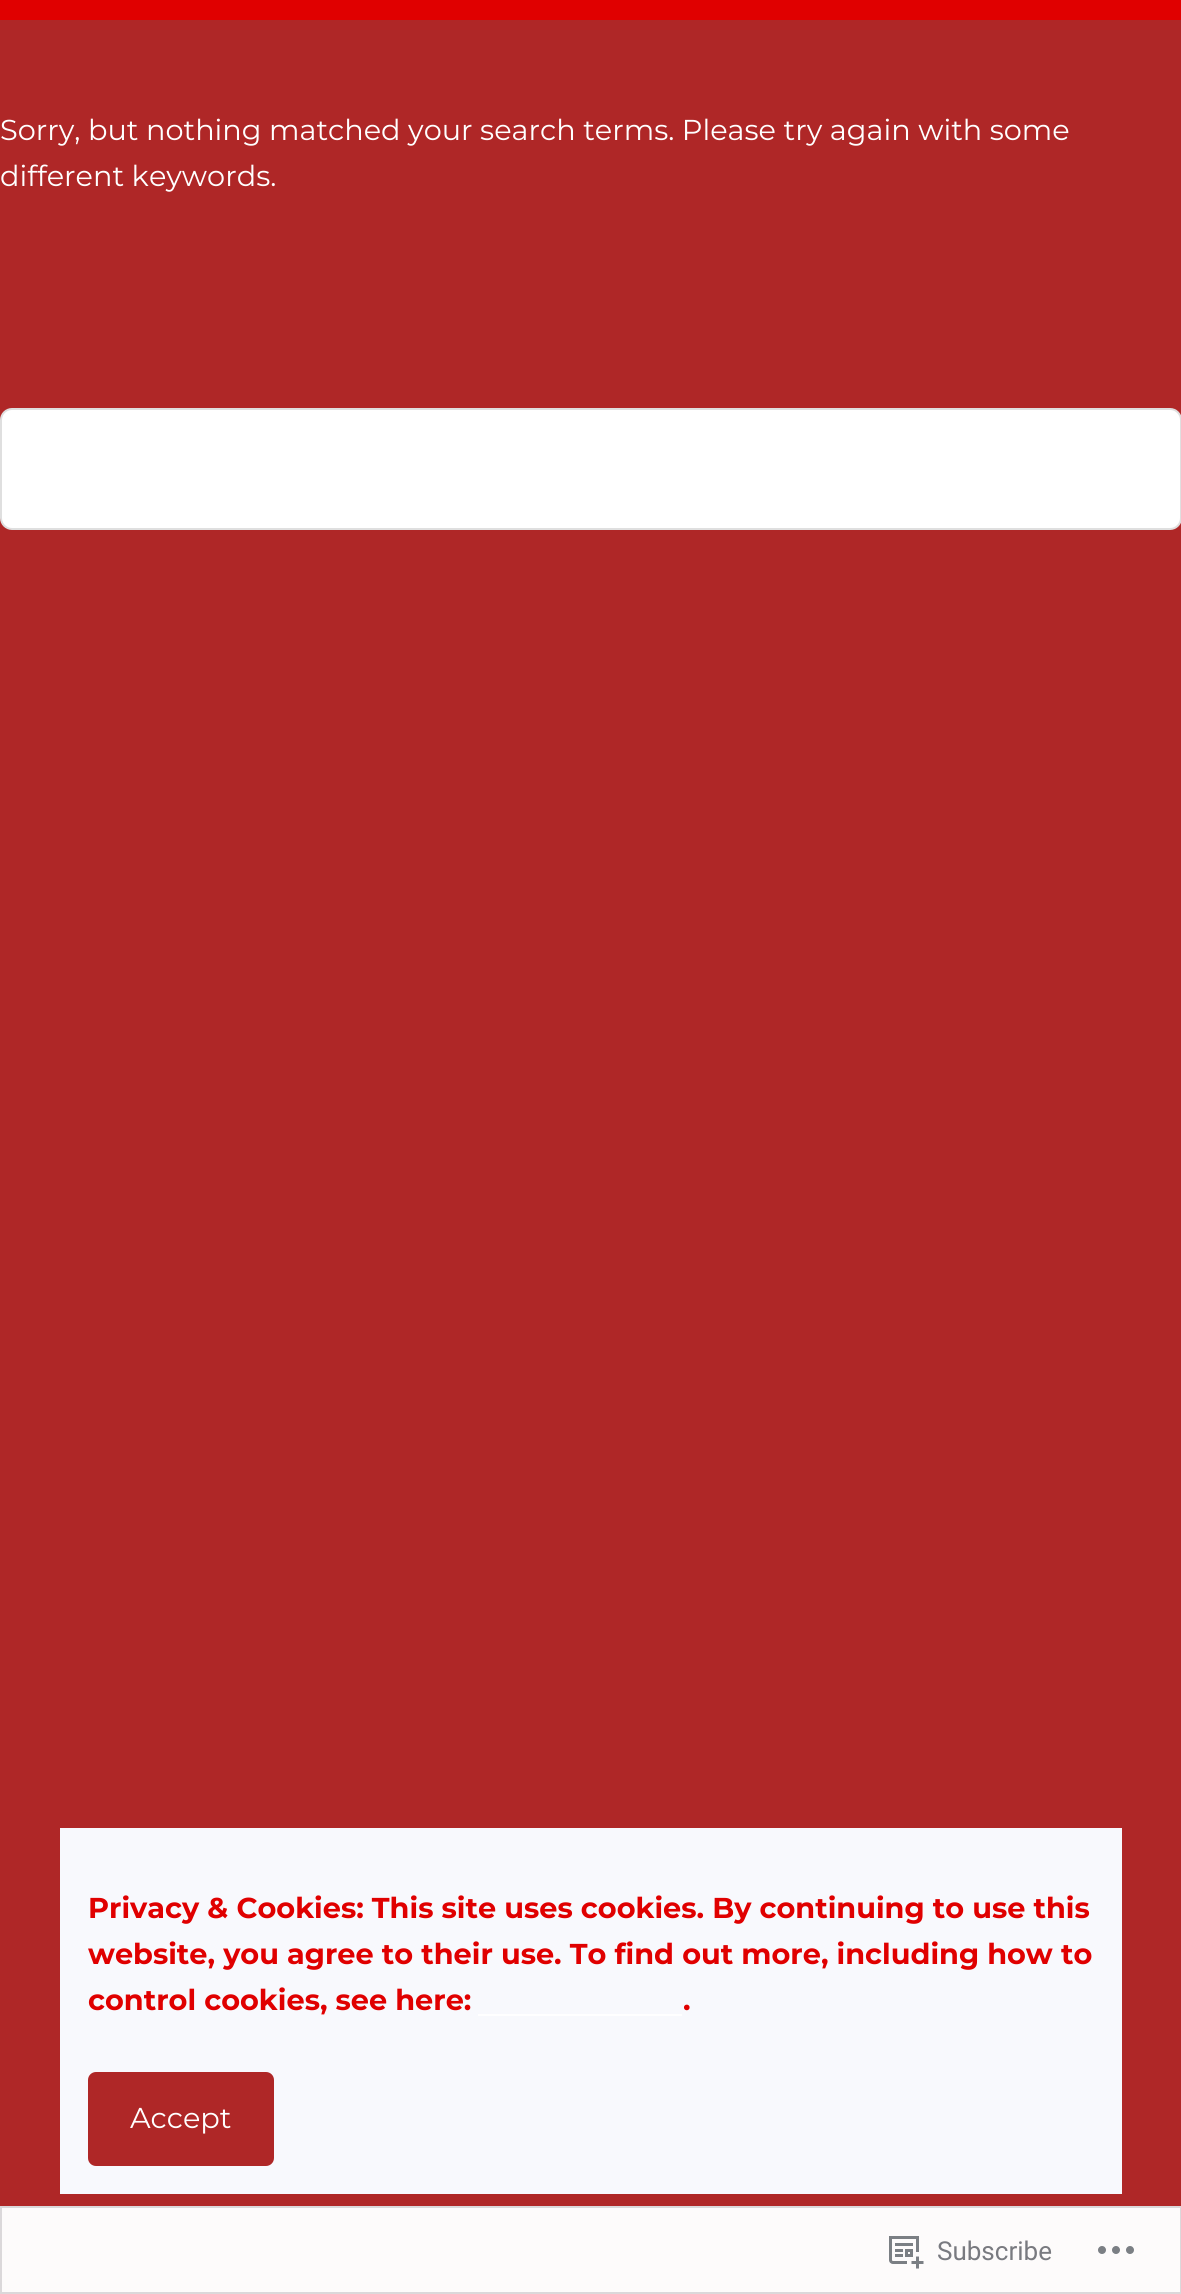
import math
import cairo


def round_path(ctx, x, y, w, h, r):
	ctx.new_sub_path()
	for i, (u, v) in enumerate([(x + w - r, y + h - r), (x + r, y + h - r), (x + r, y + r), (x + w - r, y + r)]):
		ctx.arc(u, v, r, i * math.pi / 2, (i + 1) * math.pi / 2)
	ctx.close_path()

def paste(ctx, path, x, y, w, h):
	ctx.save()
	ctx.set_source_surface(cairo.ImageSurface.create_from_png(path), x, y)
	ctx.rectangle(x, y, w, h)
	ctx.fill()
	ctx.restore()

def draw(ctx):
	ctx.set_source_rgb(0.686, 0.153, 0.153)
	ctx.paint()
	ctx.set_source_rgb(0.878, 0, 0)
	ctx.rectangle(0, 0, 1181, 20)
	ctx.fill()
	ctx.select_font_face('Montserrat')
	ctx.set_font_size(28.75)
	ctx.set_source_rgb(1, 1, 1)
	ctx.move_to(0, 140)
	ctx.show_text('Sorry, but nothing matched your search terms. Please try again with some')
	ctx.move_to(0, 186)
	ctx.show_text('different keywords.')
	round_path(ctx, 1, 409, 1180, 120, 11)
	ctx.fill_preserve()
	ctx.set_source_rgb(0.875, 0.875, 0.875)
	ctx.stroke()
	ctx.set_source_rgb(0.969, 0.976, 0.992)
	ctx.rectangle(60, 1828, 1062, 366)
	ctx.fill()
	ctx.select_font_face('Montserrat', cairo.FONT_SLANT_NORMAL, cairo.FONT_WEIGHT_BOLD)
	ctx.set_source_rgb(0.878, 0, 0)
	for x, y, s in [
		(88, 1918, 'Privacy & Cookies: This site uses cookies. By continuing to use this'),
		(88, 1964, 'website, you agree to their use. To find out more, including how to'),
		(88, 2010, 'control cookies, see here:'),
		(683, 2010, '.'),
	]:
		ctx.move_to(x, y)
		ctx.show_text(s)
	ctx.set_source_rgb(1, 1, 1)
	ctx.rectangle(478, 2014, 204, 2)
	ctx.fill()
	ctx.set_source_rgb(0.686, 0.153, 0.153)
	round_path(ctx, 88, 2072, 186, 94, 8)
	ctx.fill()
	ctx.select_font_face('Montserrat')
	ctx.set_source_rgb(1, 1, 1)
	ctx.move_to(130, 2128)
	ctx.show_text('Accept')
	ctx.set_source_rgb(0.992, 0.984, 0.984)
	ctx.rectangle(1, 2207, 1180, 86)
	ctx.fill_preserve()
	ctx.set_source_rgb(0.859, 0.847, 0.855)
	ctx.stroke()
	paste(ctx, 'media/1.png', 889, 2236, 35, 33)
	ctx.select_font_face('Roboto')
	ctx.set_font_size(26)
	ctx.set_source_rgb(0.475, 0.478, 0.502)
	ctx.move_to(937, 2260)
	ctx.show_text('Subscribe')
	paste(ctx, 'media/2.png', 1098, 2246, 36, 8)


surface = cairo.ImageSurface(cairo.FORMAT_RGB24, 1181, 2294)
ctx = cairo.Context(surface)
options = cairo.FontOptions()
options.set_hint_metrics(cairo.HINT_METRICS_OFF)
options.set_hint_style(cairo.HINT_STYLE_NONE)
ctx.set_font_options(options)
ctx.set_miter_limit(4)
draw(ctx)
surface.write_to_png('image.png')
